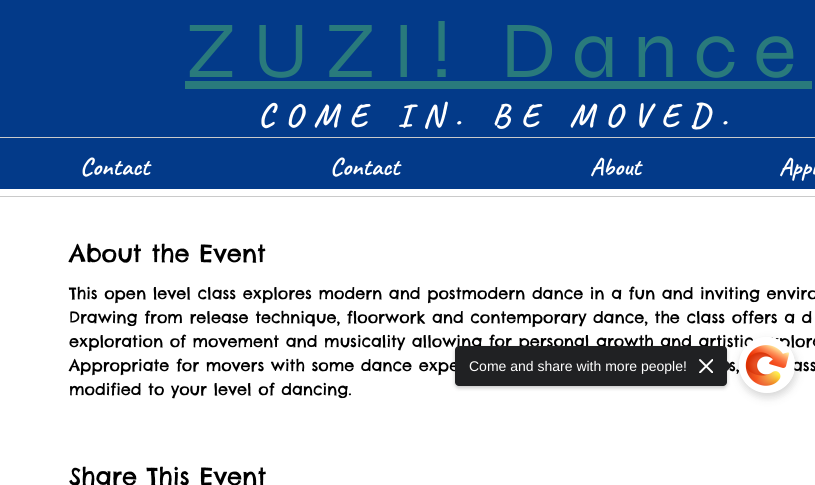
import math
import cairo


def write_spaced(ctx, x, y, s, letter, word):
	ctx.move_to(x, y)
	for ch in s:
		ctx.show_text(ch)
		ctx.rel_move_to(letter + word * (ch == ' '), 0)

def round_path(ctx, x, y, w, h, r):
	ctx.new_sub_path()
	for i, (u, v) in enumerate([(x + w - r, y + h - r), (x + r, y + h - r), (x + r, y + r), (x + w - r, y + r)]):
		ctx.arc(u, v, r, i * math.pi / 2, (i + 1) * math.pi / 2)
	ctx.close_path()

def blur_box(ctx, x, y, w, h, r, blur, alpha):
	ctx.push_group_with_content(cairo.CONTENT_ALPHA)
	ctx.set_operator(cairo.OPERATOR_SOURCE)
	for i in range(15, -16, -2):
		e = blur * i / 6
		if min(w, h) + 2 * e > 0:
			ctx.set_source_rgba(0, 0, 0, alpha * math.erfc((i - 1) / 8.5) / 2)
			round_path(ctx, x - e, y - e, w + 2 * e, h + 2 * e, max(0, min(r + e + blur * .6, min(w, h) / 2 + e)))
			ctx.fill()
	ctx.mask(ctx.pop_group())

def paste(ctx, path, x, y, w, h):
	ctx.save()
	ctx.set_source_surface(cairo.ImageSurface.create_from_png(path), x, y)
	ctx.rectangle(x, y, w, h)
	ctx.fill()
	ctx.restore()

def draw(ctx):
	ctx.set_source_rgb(1, 1, 1)
	ctx.paint()
	ctx.set_source_rgb(0.012, 0.227, 0.537)
	ctx.rectangle(0, 0, 815, 189)
	ctx.fill()
	ctx.select_font_face('Syne')
	ctx.set_font_size(80)
	ctx.set_source_rgb(0.161, 0.478, 0.486)
	write_spaced(ctx, 185, 77, 'ZUZI! Dance', 16, 0)
	ctx.rectangle(185, 81, 627, 8)
	ctx.fill()
	ctx.select_font_face('Caveat', cairo.FONT_SLANT_NORMAL, cairo.FONT_WEIGHT_BOLD)
	ctx.set_font_size(33)
	ctx.set_source_rgb(1, 1, 1)
	write_spaced(ctx, 258, 126, 'COME IN. BE MOVED.', 11.5, 0)
	ctx.set_source_rgb(0.792, 0.792, 0.792)
	ctx.rectangle(0, 137, 815, 1)
	ctx.fill()
	ctx.rectangle(0, 196, 815, 1)
	ctx.fill()
	ctx.set_font_size(25)
	ctx.set_source_rgb(1, 1, 1)
	for x, y, s in [
		(80, 175, 'Contact'),
		(330, 175, 'Contact'),
		(590, 175, 'About'),
		(779, 175, 'Appr'),
	]:
		ctx.move_to(x, y)
		ctx.show_text(s)
	ctx.select_font_face('Chelsea Market')
	ctx.set_font_size(24)
	ctx.set_source_rgb(0, 0, 0)
	ctx.move_to(69, 262)
	ctx.show_text('About the Event')
	ctx.set_font_size(16)
	for x, y, s in [
		(69, 299, 'This open level class explores modern and postmodern dance in a fun and inviting enviro'),
		(69, 323, 'Drawing from release technique, floorwork and contemporary dance, the class offers a d'),
		(69, 347, 'exploration of movement and musicality allowing for personal growth and artistic explora'),
		(69, 371, 'Appropriate for movers with some dance expe'),
		(729, 371, 's,'),
		(792, 371, 'ass'),
		(69, 395, 'modified to your level of dancing.'),
	]:
		ctx.move_to(x, y)
		ctx.show_text(s)
	ctx.set_font_size(24)
	ctx.move_to(69, 485)
	ctx.show_text('Share This Event')
	ctx.save()
	ctx.set_fill_rule(cairo.FILL_RULE_EVEN_ODD)
	ctx.new_path()
	ctx.move_to(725, 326)
	ctx.line_to(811, 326)
	ctx.line_to(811, 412)
	ctx.line_to(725, 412)
	ctx.close_path()
	ctx.move_to(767, 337)
	ctx.curve_to(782.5, 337, 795, 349.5, 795, 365)
	ctx.curve_to(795, 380.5, 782.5, 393, 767, 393)
	ctx.curve_to(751.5, 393, 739, 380.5, 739, 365)
	ctx.curve_to(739, 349.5, 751.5, 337, 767, 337)
	ctx.close_path()
	ctx.clip()
	ctx.set_source_rgb(0, 0, 0)
	blur_box(ctx, 740, 341, 56, 56, 28, 4.5, 0.17)
	ctx.restore()
	ctx.set_source_rgb(0, 0, 0)
	blur_box(ctx, 455, 348, 272, 40, 4, 2, 0.22)
	ctx.set_source_rgb(0.125, 0.129, 0.137)
	round_path(ctx, 455, 346, 272, 40, 4)
	ctx.fill()
	ctx.select_font_face('Liberation Sans')
	ctx.set_font_size(14)
	ctx.set_source_rgb(1, 1, 1)
	ctx.move_to(469, 371)
	ctx.show_text('Come and share with more people!')
	paste(ctx, 'media/1.png', 699, 359, 14, 14)
	ctx.set_source_rgb(0.125, 0.129, 0.137)
	ctx.new_path()
	ctx.move_to(725, 373)
	ctx.line_to(725, 359)
	ctx.line_to(732, 366)
	ctx.close_path()
	ctx.fill()
	paste(ctx, 'media/2.png', 745, 337, 50, 49)


surface = cairo.ImageSurface(cairo.FORMAT_RGB24, 815, 485)
ctx = cairo.Context(surface)
options = cairo.FontOptions()
options.set_hint_metrics(cairo.HINT_METRICS_OFF)
options.set_hint_style(cairo.HINT_STYLE_NONE)
ctx.set_font_options(options)
ctx.set_miter_limit(4)
draw(ctx)
surface.write_to_png('image.png')
